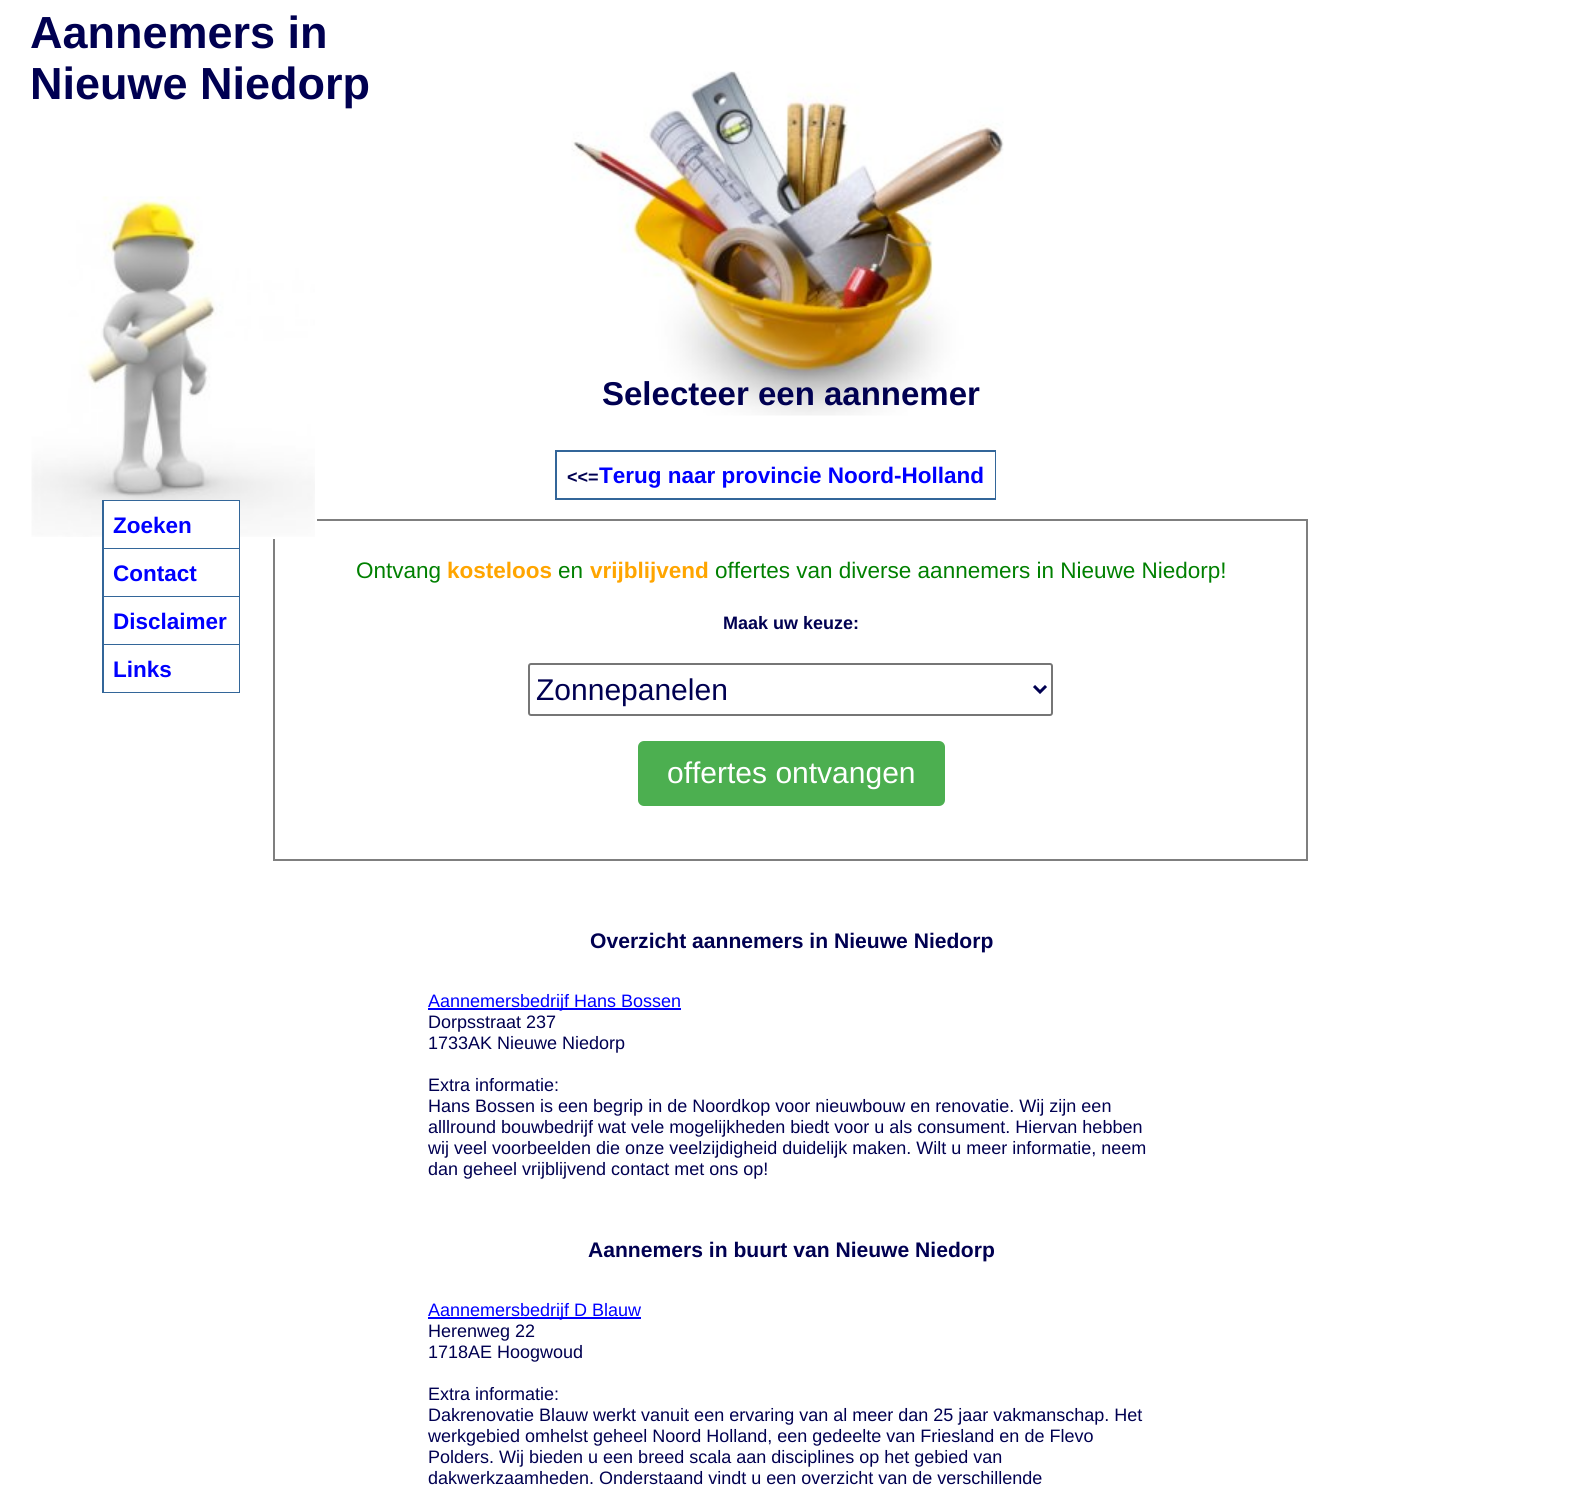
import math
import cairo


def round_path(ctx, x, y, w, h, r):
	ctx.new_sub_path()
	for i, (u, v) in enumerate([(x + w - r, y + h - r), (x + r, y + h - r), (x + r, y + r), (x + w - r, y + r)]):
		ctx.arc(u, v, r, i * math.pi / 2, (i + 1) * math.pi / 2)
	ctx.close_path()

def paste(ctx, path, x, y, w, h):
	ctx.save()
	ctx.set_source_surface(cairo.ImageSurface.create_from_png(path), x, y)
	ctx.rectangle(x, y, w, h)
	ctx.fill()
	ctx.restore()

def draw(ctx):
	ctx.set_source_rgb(1, 1, 1)
	ctx.paint()
	ctx.select_font_face('Liberation Sans', cairo.FONT_SLANT_NORMAL, cairo.FONT_WEIGHT_BOLD)
	ctx.set_font_size(45)
	ctx.set_source_rgb(0, 0, 0.318)
	ctx.move_to(30, 48)
	ctx.show_text('Aannemers in')
	ctx.move_to(30, 99)
	ctx.show_text('Nieuwe Niedorp')
	paste(ctx, 'media/1.png', 571, 71, 433, 345)
	ctx.set_font_size(33)
	ctx.move_to(602, 405)
	ctx.show_text('Selecteer een aannemer')
	ctx.rectangle(274, 520, 1033, 340)
	ctx.set_source_rgb(0.498, 0.498, 0.498)
	ctx.stroke()
	ctx.rectangle(31, 196, 285, 342)
	ctx.set_source_rgb(1, 1, 1)
	ctx.stroke()
	paste(ctx, 'media/2.png', 31, 196, 284, 341)
	ctx.set_source_rgb(0.2, 0.4, 0.6)
	ctx.rectangle(102, 500, 138, 193)
	ctx.fill()
	ctx.set_source_rgb(1, 1, 1)
	ctx.rectangle(104, 501, 135, 47)
	ctx.fill()
	ctx.set_font_size(22.5)
	ctx.set_source_rgb(0, 0, 1)
	ctx.move_to(113, 533)
	ctx.show_text('Zoeken')
	ctx.set_source_rgb(1, 1, 1)
	ctx.rectangle(104, 549, 135, 47)
	ctx.fill()
	ctx.set_source_rgb(0, 0, 1)
	ctx.move_to(113, 581)
	ctx.show_text('Contact')
	ctx.set_source_rgb(1, 1, 1)
	ctx.rectangle(104, 597, 135, 47)
	ctx.fill()
	ctx.set_source_rgb(0, 0, 1)
	ctx.move_to(113, 629)
	ctx.show_text('Disclaimer')
	ctx.set_source_rgb(1, 1, 1)
	ctx.rectangle(104, 645, 135, 47)
	ctx.fill()
	ctx.set_source_rgb(0, 0, 1)
	ctx.move_to(113, 677)
	ctx.show_text('Links')
	ctx.set_source_rgb(0.2, 0.4, 0.6)
	ctx.rectangle(555, 450, 441, 50)
	ctx.fill()
	ctx.set_source_rgb(1, 1, 1)
	ctx.rectangle(557, 452, 438, 46)
	ctx.fill()
	ctx.set_font_size(18)
	ctx.set_source_rgb(0, 0, 0.318)
	ctx.move_to(567, 483)
	ctx.show_text('<<=')
	ctx.set_font_size(22.5)
	ctx.set_source_rgb(0, 0, 1)
	ctx.move_to(599, 483)
	ctx.show_text('Terug naar provincie Noord-Holland')
	ctx.select_font_face('Liberation Sans')
	ctx.set_source_rgb(0, 0.502, 0)
	ctx.move_to(356, 578)
	ctx.show_text('Ontvang')
	ctx.select_font_face('Liberation Sans', cairo.FONT_SLANT_NORMAL, cairo.FONT_WEIGHT_BOLD)
	ctx.set_source_rgb(1, 0.647, 0)
	ctx.move_to(447, 578)
	ctx.show_text('kosteloos')
	ctx.select_font_face('Liberation Sans')
	ctx.set_source_rgb(0, 0.502, 0)
	ctx.move_to(558, 578)
	ctx.show_text('en')
	ctx.select_font_face('Liberation Sans', cairo.FONT_SLANT_NORMAL, cairo.FONT_WEIGHT_BOLD)
	ctx.set_source_rgb(1, 0.647, 0)
	ctx.move_to(590, 578)
	ctx.show_text('vrijblijvend')
	ctx.select_font_face('Liberation Sans')
	ctx.set_source_rgb(0, 0.502, 0)
	ctx.move_to(715, 578)
	ctx.show_text('offertes van diverse aannemers in Nieuwe Niedorp!')
	ctx.select_font_face('Liberation Sans', cairo.FONT_SLANT_NORMAL, cairo.FONT_WEIGHT_BOLD)
	ctx.set_font_size(18)
	ctx.set_source_rgb(0, 0, 0.318)
	ctx.move_to(723, 629)
	ctx.show_text('Maak uw keuze:')
	round_path(ctx, 529, 664, 523, 51, 2)
	ctx.set_source_rgb(0.463, 0.463, 0.463)
	ctx.stroke()
	ctx.new_path()
	ctx.move_to(1034, 686)
	ctx.line_to(1040, 692)
	ctx.line_to(1046, 686)
	ctx.set_source_rgb(0, 0, 0.318)
	ctx.set_line_width(3)
	ctx.stroke()
	ctx.select_font_face('Liberation Sans')
	ctx.set_font_size(30)
	ctx.move_to(536, 700)
	ctx.show_text('Zonnepanelen')
	ctx.set_source_rgb(0.298, 0.686, 0.314)
	round_path(ctx, 638, 741, 307, 65, 6)
	ctx.fill()
	ctx.set_source_rgb(1, 1, 1)
	ctx.move_to(667, 783)
	ctx.show_text('offertes ontvangen')
	ctx.select_font_face('Liberation Sans', cairo.FONT_SLANT_NORMAL, cairo.FONT_WEIGHT_BOLD)
	ctx.set_font_size(21.1)
	ctx.set_source_rgb(0, 0, 0.318)
	ctx.move_to(590, 948)
	ctx.show_text('Overzicht aannemers in Nieuwe Niedorp')
	ctx.set_source_rgb(0, 0, 1)
	ctx.rectangle(428, 1008, 253, 2)
	ctx.fill()
	ctx.select_font_face('Liberation Sans')
	ctx.set_font_size(18)
	ctx.move_to(428, 1007)
	ctx.show_text('Aannemersbedrijf Hans Bossen')
	ctx.set_source_rgb(0, 0, 0.318)
	for x, y, s in [
		(428, 1028, 'Dorpsstraat 237'),
		(428, 1049, '1733AK Nieuwe Niedorp'),
		(428, 1091, 'Extra informatie:'),
		(428, 1112, 'Hans Bossen is een begrip in de Noordkop voor nieuwbouw en renovatie. Wij zijn een'),
		(428, 1133, 'alllround bouwbedrijf wat vele mogelijkheden biedt voor u als consument. Hiervan hebben'),
		(428, 1154, 'wij veel voorbeelden die onze veelzijdigheid duidelijk maken. Wilt u meer informatie, neem'),
		(428, 1175, 'dan geheel vrijblijvend contact met ons op!'),
	]:
		ctx.move_to(x, y)
		ctx.show_text(s)
	ctx.select_font_face('Liberation Sans', cairo.FONT_SLANT_NORMAL, cairo.FONT_WEIGHT_BOLD)
	ctx.set_font_size(21.1)
	ctx.move_to(588, 1257)
	ctx.show_text('Aannemers in buurt van Nieuwe Niedorp')
	ctx.set_source_rgb(0, 0, 1)
	ctx.rectangle(428, 1317, 213, 2)
	ctx.fill()
	ctx.select_font_face('Liberation Sans')
	ctx.set_font_size(18)
	ctx.move_to(428, 1316)
	ctx.show_text('Aannemersbedrijf D Blauw')
	ctx.set_source_rgb(0, 0, 0.318)
	for x, y, s in [
		(428, 1337, 'Herenweg 22'),
		(428, 1358, '1718AE Hoogwoud'),
		(428, 1400, 'Extra informatie:'),
		(428, 1421, 'Dakrenovatie Blauw werkt vanuit een ervaring van al meer dan 25 jaar vakmanschap. Het'),
		(428, 1442, 'werkgebied omhelst geheel Noord Holland, een gedeelte van Friesland en de Flevo'),
		(428, 1463, 'Polders. Wij bieden u een breed scala aan disciplines op het gebied van'),
		(428, 1484, 'dakwerkzaamheden. Onderstaand vindt u een overzicht van de verschillende'),
	]:
		ctx.move_to(x, y)
		ctx.show_text(s)


surface = cairo.ImageSurface(cairo.FORMAT_RGB24, 1590, 1488)
ctx = cairo.Context(surface)
options = cairo.FontOptions()
options.set_hint_metrics(cairo.HINT_METRICS_OFF)
options.set_hint_style(cairo.HINT_STYLE_NONE)
ctx.set_font_options(options)
ctx.set_miter_limit(4)
draw(ctx)
surface.write_to_png('image.png')
